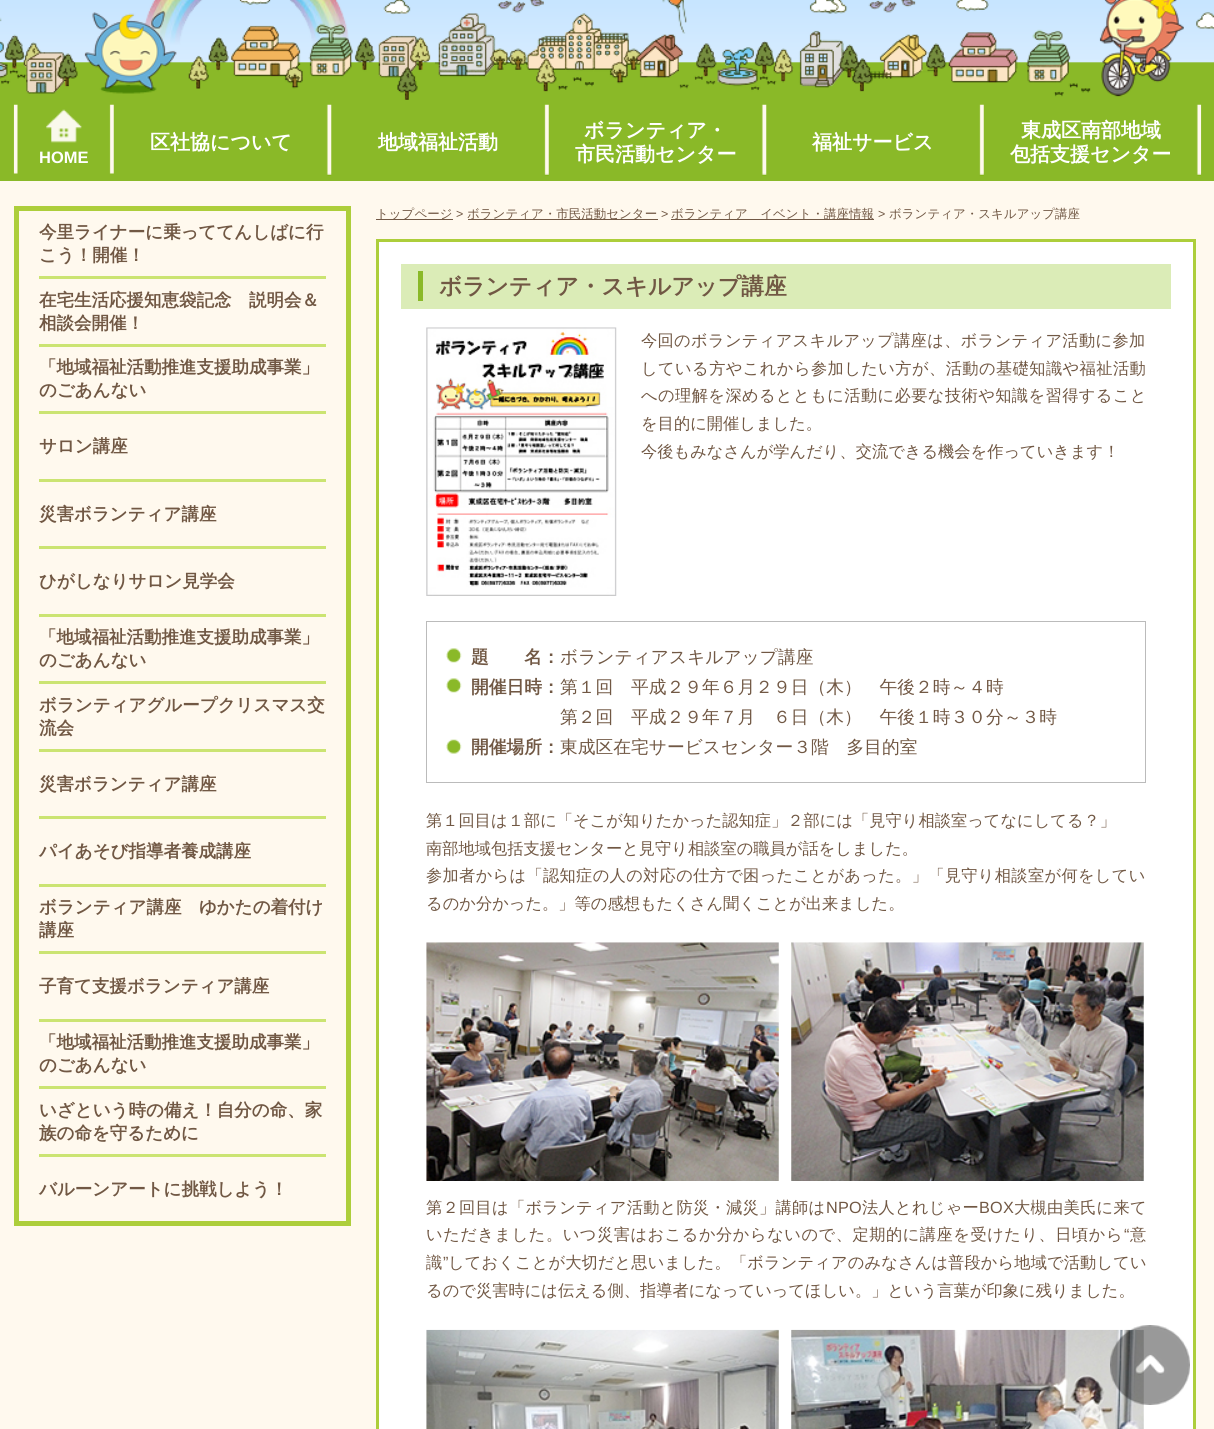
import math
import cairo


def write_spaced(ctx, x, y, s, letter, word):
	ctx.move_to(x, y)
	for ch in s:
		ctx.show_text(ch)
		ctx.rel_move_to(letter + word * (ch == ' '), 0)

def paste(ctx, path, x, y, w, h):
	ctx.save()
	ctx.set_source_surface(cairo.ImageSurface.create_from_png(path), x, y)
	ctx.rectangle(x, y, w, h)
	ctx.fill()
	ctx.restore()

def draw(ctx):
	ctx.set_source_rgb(1, 0.976, 0.933)
	ctx.paint()
	paste(ctx, 'media/1.png', 0, 0, 1214, 181)
	paste(ctx, 'media/2.png', 326, 104, 6, 72)
	ctx.select_font_face('WenQuanYi Zen Hei', cairo.FONT_SLANT_NORMAL, cairo.FONT_WEIGHT_BOLD)
	ctx.set_font_size(20)
	ctx.set_source_rgb(1, 1, 1)
	ctx.move_to(150, 149)
	ctx.show_text('区社協について')
	paste(ctx, 'media/3.png', 544, 104, 5, 72)
	ctx.move_to(378, 149)
	ctx.show_text('地域福祉活動')
	paste(ctx, 'media/2.png', 761, 104, 6, 72)
	ctx.move_to(584, 137)
	ctx.show_text('ボランティア・')
	ctx.move_to(575, 161)
	ctx.show_text('市民活動センター')
	paste(ctx, 'media/3.png', 979, 104, 5, 72)
	ctx.move_to(812, 149)
	ctx.show_text('福祉サービス')
	paste(ctx, 'media/4.png', 1196, 104, 6, 72)
	ctx.move_to(1021, 137)
	ctx.show_text('東成区南部地域')
	ctx.move_to(1010, 161)
	ctx.show_text('包括支援センター')
	paste(ctx, 'media/5.png', 13, 104, 101, 70)
	ctx.select_font_face('Liberation Sans', cairo.FONT_SLANT_NORMAL, cairo.FONT_WEIGHT_BOLD)
	ctx.set_font_size(16.5)
	ctx.move_to(39, 163)
	ctx.show_text('HOME')
	ctx.rectangle(16.5, 208.5, 332, 1015)
	ctx.set_source_rgb(0.678, 0.808, 0.231)
	ctx.set_line_width(5)
	ctx.stroke()
	ctx.set_source_rgb(0.796, 0.894, 0.447)
	ctx.rectangle(39, 276, 287, 3)
	ctx.fill()
	ctx.select_font_face('WenQuanYi Zen Hei', cairo.FONT_SLANT_NORMAL, cairo.FONT_WEIGHT_BOLD)
	ctx.set_font_size(17.5)
	ctx.set_source_rgb(0.443, 0.345, 0.267)
	ctx.move_to(39, 238)
	ctx.show_text('今里ライナーに乗っててんしばに行')
	ctx.move_to(39, 261)
	ctx.show_text('こう！開催！')
	ctx.set_source_rgb(0.796, 0.894, 0.447)
	ctx.rectangle(39, 344, 287, 3)
	ctx.fill()
	ctx.set_source_rgb(0.443, 0.345, 0.267)
	ctx.move_to(39, 306)
	ctx.show_text('在宅生活応援知恵袋記念　説明会＆')
	ctx.move_to(39, 329)
	ctx.show_text('相談会開催！')
	ctx.set_source_rgb(0.796, 0.894, 0.447)
	ctx.rectangle(39, 411, 287, 3)
	ctx.fill()
	ctx.set_source_rgb(0.443, 0.345, 0.267)
	ctx.move_to(39, 373)
	ctx.show_text('「地域福祉活動推進支援助成事業」')
	ctx.move_to(39, 396)
	ctx.show_text('のごあんない')
	ctx.set_source_rgb(0.796, 0.894, 0.447)
	ctx.rectangle(39, 479, 287, 3)
	ctx.fill()
	ctx.set_source_rgb(0.443, 0.345, 0.267)
	ctx.move_to(39, 452)
	ctx.show_text('サロン講座')
	ctx.set_source_rgb(0.796, 0.894, 0.447)
	ctx.rectangle(39, 546, 287, 3)
	ctx.fill()
	ctx.set_source_rgb(0.443, 0.345, 0.267)
	ctx.move_to(39, 520)
	ctx.show_text('災害ボランティア講座')
	ctx.set_source_rgb(0.796, 0.894, 0.447)
	ctx.rectangle(39, 614, 287, 3)
	ctx.fill()
	ctx.set_source_rgb(0.443, 0.345, 0.267)
	ctx.move_to(39, 587)
	ctx.show_text('ひがしなりサロン見学会')
	ctx.set_source_rgb(0.796, 0.894, 0.447)
	ctx.rectangle(39, 681, 287, 3)
	ctx.fill()
	ctx.set_source_rgb(0.443, 0.345, 0.267)
	ctx.move_to(39, 643)
	ctx.show_text('「地域福祉活動推進支援助成事業」')
	ctx.move_to(39, 666)
	ctx.show_text('のごあんない')
	ctx.set_source_rgb(0.796, 0.894, 0.447)
	ctx.rectangle(39, 749, 287, 3)
	ctx.fill()
	ctx.set_source_rgb(0.443, 0.345, 0.267)
	ctx.move_to(39, 711)
	ctx.show_text('ボランティアグループクリスマス交')
	ctx.move_to(39, 734)
	ctx.show_text('流会')
	ctx.set_source_rgb(0.796, 0.894, 0.447)
	ctx.rectangle(39, 816, 287, 3)
	ctx.fill()
	ctx.set_source_rgb(0.443, 0.345, 0.267)
	ctx.move_to(39, 790)
	ctx.show_text('災害ボランティア講座')
	ctx.set_source_rgb(0.796, 0.894, 0.447)
	ctx.rectangle(39, 884, 287, 3)
	ctx.fill()
	ctx.set_source_rgb(0.443, 0.345, 0.267)
	ctx.move_to(39, 857)
	ctx.show_text('パイあそび指導者養成講座')
	ctx.set_source_rgb(0.796, 0.894, 0.447)
	ctx.rectangle(39, 951, 287, 3)
	ctx.fill()
	ctx.set_source_rgb(0.443, 0.345, 0.267)
	ctx.move_to(39, 913)
	ctx.show_text('ボランティア講座　ゆかたの着付け')
	ctx.move_to(39, 936)
	ctx.show_text('講座')
	ctx.set_source_rgb(0.796, 0.894, 0.447)
	ctx.rectangle(39, 1019, 287, 3)
	ctx.fill()
	ctx.set_source_rgb(0.443, 0.345, 0.267)
	ctx.move_to(39, 992)
	ctx.show_text('子育て支援ボランティア講座')
	ctx.set_source_rgb(0.796, 0.894, 0.447)
	ctx.rectangle(39, 1086, 287, 3)
	ctx.fill()
	ctx.set_source_rgb(0.443, 0.345, 0.267)
	ctx.move_to(39, 1048)
	ctx.show_text('「地域福祉活動推進支援助成事業」')
	ctx.move_to(39, 1071)
	ctx.show_text('のごあんない')
	ctx.set_source_rgb(0.796, 0.894, 0.447)
	ctx.rectangle(39, 1154, 287, 3)
	ctx.fill()
	ctx.set_source_rgb(0.443, 0.345, 0.267)
	for x, y, s in [
		(39, 1116, 'いざという時の備え！自分の命、家'),
		(39, 1139, '族の命を守るために'),
		(39, 1195, 'バルーンアートに挑戦しよう！'),
	]:
		ctx.move_to(x, y)
		ctx.show_text(s)
	ctx.rectangle(376, 219, 77, 1)
	ctx.fill()
	ctx.select_font_face('WenQuanYi Zen Hei Medium')
	ctx.set_font_size(12.5)
	ctx.move_to(376, 218)
	ctx.show_text('トップページ')
	ctx.select_font_face('Liberation Sans')
	ctx.move_to(456, 218)
	ctx.show_text('>')
	ctx.rectangle(468, 219, 190, 1)
	ctx.fill()
	ctx.select_font_face('WenQuanYi Zen Hei Medium')
	ctx.move_to(467, 218)
	ctx.show_text('ボランティア・市民活動センター')
	ctx.select_font_face('Liberation Sans')
	ctx.move_to(661, 218)
	ctx.show_text('>')
	ctx.rectangle(671, 219, 203, 1)
	ctx.fill()
	ctx.select_font_face('WenQuanYi Zen Hei Medium')
	ctx.move_to(671, 218)
	ctx.show_text('ボランティア　イベント・講座情報')
	ctx.select_font_face('Liberation Sans')
	ctx.move_to(878, 218)
	ctx.show_text('>')
	ctx.select_font_face('WenQuanYi Zen Hei Medium')
	ctx.move_to(889, 218)
	ctx.show_text('ボランティア・スキルアップ講座')
	ctx.set_source_rgb(1, 1, 1)
	ctx.rectangle(377.5, 240.5, 817, 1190)
	ctx.fill_preserve()
	ctx.set_source_rgb(0.678, 0.808, 0.231)
	ctx.set_line_width(3)
	ctx.stroke()
	ctx.set_source_rgb(0.859, 0.925, 0.718)
	ctx.rectangle(401, 264, 770, 45)
	ctx.fill()
	ctx.set_source_rgb(0.541, 0.725, 0.157)
	ctx.rectangle(418, 271, 5, 30)
	ctx.fill()
	ctx.select_font_face('WenQuanYi Zen Hei', cairo.FONT_SLANT_NORMAL, cairo.FONT_WEIGHT_BOLD)
	ctx.set_font_size(22.75)
	ctx.set_source_rgb(0.443, 0.345, 0.267)
	ctx.move_to(439, 294)
	ctx.show_text('ボランティア・スキルアップ講座')
	paste(ctx, 'media/6.png', 426, 327, 191, 269)
	ctx.select_font_face('WenQuanYi Zen Hei Medium')
	ctx.set_font_size(16.25)
	write_spaced(ctx, 641, 346, '今回のボランティアスキルアップ講座は、ボランティア活動に参加', 0.3, 0)
	write_spaced(ctx, 641, 374, 'している方やこれから参加したい方が、活動の基礎知識や福祉活動', 0.4, 0)
	write_spaced(ctx, 641, 401, 'への理解を深めるとともに活動に必要な技術や知識を習得すること', 0.4, 0)
	ctx.move_to(641, 429)
	ctx.show_text('を目的に開催しました。')
	ctx.move_to(641, 457)
	ctx.show_text('今後もみなさんが学んだり、交流できる機会を作っていきます！')
	ctx.rectangle(426.5, 621.5, 719, 161)
	ctx.set_source_rgb(0.733, 0.733, 0.733)
	ctx.set_line_width(1)
	ctx.stroke()
	paste(ctx, 'media/7.png', 446, 648, 16, 15)
	ctx.select_font_face('WenQuanYi Zen Hei', cairo.FONT_SLANT_NORMAL, cairo.FONT_WEIGHT_BOLD)
	ctx.set_font_size(17.75)
	ctx.set_source_rgb(0.443, 0.345, 0.267)
	ctx.move_to(471, 663)
	ctx.show_text('題　　名：')
	ctx.select_font_face('WenQuanYi Zen Hei Medium')
	ctx.move_to(560, 663)
	ctx.show_text('ボランティアスキルアップ講座')
	paste(ctx, 'media/7.png', 446, 678, 16, 15)
	ctx.select_font_face('WenQuanYi Zen Hei', cairo.FONT_SLANT_NORMAL, cairo.FONT_WEIGHT_BOLD)
	ctx.move_to(471, 693)
	ctx.show_text('開催日時：')
	ctx.select_font_face('WenQuanYi Zen Hei Medium')
	ctx.move_to(560, 693)
	ctx.show_text('第１回　平成２９年６月２９日（木）　午後２時～４時')
	ctx.move_to(560, 723)
	ctx.show_text('第２回　平成２９年７月　６日（木）　午後１時３０分～３時')
	paste(ctx, 'media/8.png', 446, 739, 16, 15)
	ctx.select_font_face('WenQuanYi Zen Hei', cairo.FONT_SLANT_NORMAL, cairo.FONT_WEIGHT_BOLD)
	ctx.move_to(471, 753)
	ctx.show_text('開催場所：')
	ctx.select_font_face('WenQuanYi Zen Hei Medium')
	ctx.move_to(560, 753)
	ctx.show_text('東成区在宅サービスセンター３階　多目的室')
	ctx.set_font_size(16.25)
	ctx.move_to(426, 826)
	ctx.show_text('第１回目は１部に「そこが知りたかった認知症」２部には「見守り相談室ってなにしてる？」')
	ctx.move_to(426, 854)
	ctx.show_text('南部地域包括支援センターと見守り相談室の職員が話をしました。')
	write_spaced(ctx, 426, 881, '参加者からは「認知症の人の対応の仕方で困ったことがあった。」「見守り相談室が何をしてい', 0.3, 0)
	ctx.move_to(426, 909)
	ctx.show_text('るのか分かった。」等の感想もたくさん聞くことが出来ました。')
	paste(ctx, 'media/9.png', 426, 942, 353, 239)
	paste(ctx, 'media/10.png', 791, 942, 353, 239)
	write_spaced(ctx, 426, 1213, '第２回目は「ボランティア活動と防災・減災」講師は', 0.25, 0)
	ctx.select_font_face('Liberation Sans')
	write_spaced(ctx, 826, 1213, 'NPO', 0.25, 0)
	ctx.select_font_face('WenQuanYi Zen Hei Medium')
	write_spaced(ctx, 862, 1213, '法人とれじゃー', 0.25, 0)
	ctx.select_font_face('Liberation Sans')
	write_spaced(ctx, 979, 1213, 'BOX', 0.25, 0)
	ctx.select_font_face('WenQuanYi Zen Hei Medium')
	write_spaced(ctx, 1014, 1213, '大槻由美氏に来て', 0.25, 0)
	write_spaced(ctx, 426, 1240, 'いただきました。いつ災害はおこるか分からないので、定期的に講座を受けたり、日頃から', 0.5, 0)
	ctx.select_font_face('Liberation Sans')
	write_spaced(ctx, 1124, 1240, '“', 0.5, 0)
	ctx.select_font_face('WenQuanYi Zen Hei Medium')
	write_spaced(ctx, 1130, 1240, '意', 0.5, 0)
	write_spaced(ctx, 426, 1268, '識', 0.1, 0)
	ctx.select_font_face('Liberation Sans')
	write_spaced(ctx, 443, 1268, '”', 0.1, 0)
	ctx.select_font_face('WenQuanYi Zen Hei Medium')
	write_spaced(ctx, 448, 1268, 'しておくことが大切だと思いました。「ボランティアのみなさんは普段から地域で活動してい', 0.1, 0)
	ctx.move_to(426, 1296)
	ctx.show_text('るので災害時には伝える側、指導者になっていってほしい。」という言葉が印象に残りました。')
	paste(ctx, 'media/11.png', 426, 1329, 353, 100)
	paste(ctx, 'media/12.png', 791, 1329, 353, 100)
	paste(ctx, 'media/13.png', 1110, 1325, 80, 80)


surface = cairo.ImageSurface(cairo.FORMAT_RGB24, 1214, 1429)
ctx = cairo.Context(surface)
options = cairo.FontOptions()
options.set_hint_metrics(cairo.HINT_METRICS_OFF)
options.set_hint_style(cairo.HINT_STYLE_NONE)
ctx.set_font_options(options)
ctx.set_miter_limit(4)
draw(ctx)
surface.write_to_png('image.png')
